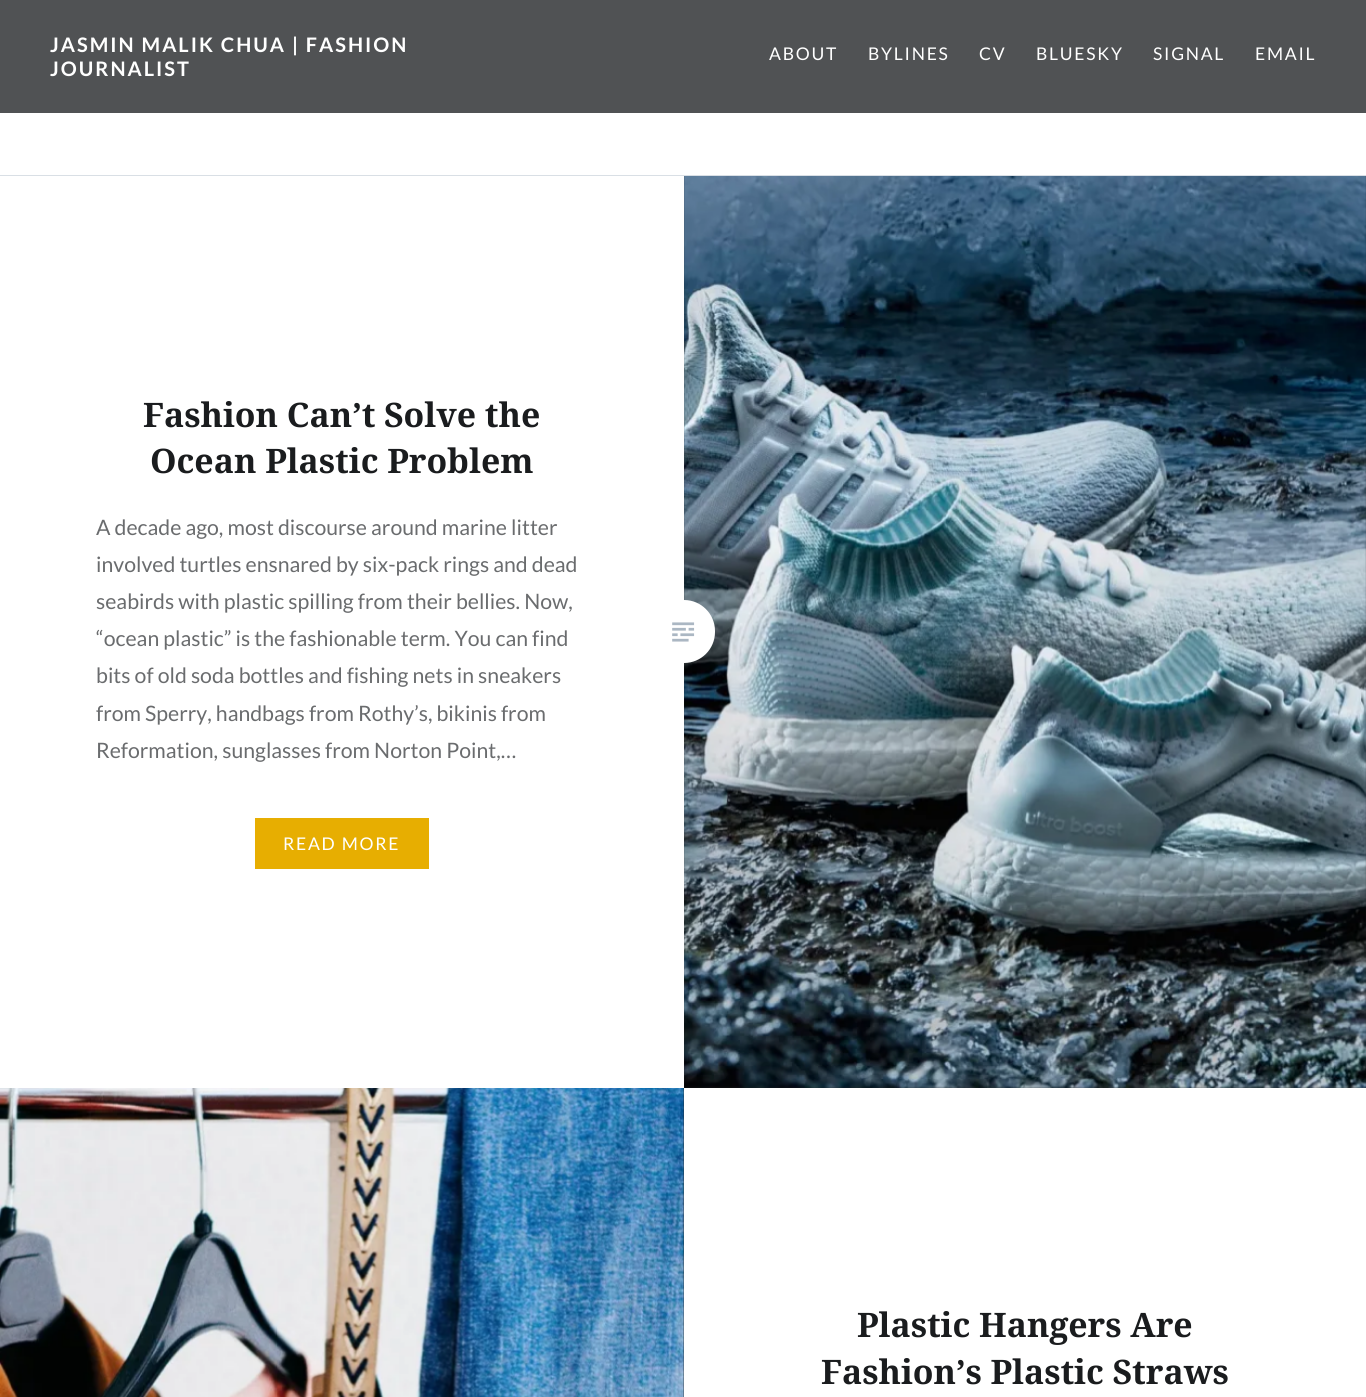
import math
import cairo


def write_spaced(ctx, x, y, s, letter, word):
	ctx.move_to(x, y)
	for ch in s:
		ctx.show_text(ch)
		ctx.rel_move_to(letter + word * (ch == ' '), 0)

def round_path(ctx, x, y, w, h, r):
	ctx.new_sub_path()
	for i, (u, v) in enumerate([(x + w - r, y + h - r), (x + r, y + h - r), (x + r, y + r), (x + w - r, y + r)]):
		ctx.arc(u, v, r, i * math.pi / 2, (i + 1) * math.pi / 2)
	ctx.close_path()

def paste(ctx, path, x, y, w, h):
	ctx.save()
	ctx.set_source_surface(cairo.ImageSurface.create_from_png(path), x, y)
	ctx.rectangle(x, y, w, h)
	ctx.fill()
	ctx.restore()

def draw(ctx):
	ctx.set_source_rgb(1, 1, 1)
	ctx.paint()
	ctx.set_source_rgb(0.314, 0.322, 0.329)
	ctx.rectangle(0, 0, 1366, 113)
	ctx.fill()
	ctx.select_font_face('Lato', cairo.FONT_SLANT_NORMAL, cairo.FONT_WEIGHT_BOLD)
	ctx.set_font_size(20)
	ctx.set_source_rgb(1, 1, 1)
	write_spaced(ctx, 50, 52, 'JASMIN MALIK CHUA | FASHION', 2, 0)
	write_spaced(ctx, 50, 76, 'JOURNALIST', 2, 0)
	ctx.select_font_face('Lato')
	ctx.set_font_size(17.5)
	for x, y, s in [
		(769, 60, 'ABOUT'),
		(868, 60, 'BYLINES'),
		(979, 60, 'CV'),
		(1036, 60, 'BLUESKY'),
		(1153, 60, 'SIGNAL'),
		(1255, 60, 'EMAIL'),
	]:
		write_spaced(ctx, x, y, s, 1.75, 0)
	ctx.set_source_rgb(0.851, 0.875, 0.898)
	ctx.rectangle(0, 175, 1366, 1)
	ctx.fill()
	ctx.select_font_face('Noto Serif', cairo.FONT_SLANT_NORMAL, cairo.FONT_WEIGHT_BOLD)
	ctx.set_font_size(33.75)
	ctx.set_source_rgb(0.102, 0.11, 0.118)
	ctx.move_to(143, 427)
	ctx.show_text('Fashion Can’t Solve the')
	ctx.move_to(150, 473)
	ctx.show_text('Ocean Plastic Problem')
	ctx.select_font_face('Lato')
	ctx.set_font_size(21.25)
	ctx.set_source_rgb(0.416, 0.424, 0.431)
	for x, y, s in [
		(96, 535, 'A decade ago, most discourse around marine litter'),
		(96, 572, 'involved turtles ensnared by six-pack rings and dead'),
		(96, 609, 'seabirds with plastic spilling from their bellies. Now,'),
		(96, 646, '“ocean plastic” is the fashionable term. You can find'),
		(96, 683, 'bits of old soda bottles and fishing nets in sneakers'),
		(96, 721, 'from Sperry, handbags from Rothy’s, bikinis from'),
		(96, 758, 'Reformation, sunglasses from Norton Point,…'),
	]:
		ctx.move_to(x, y)
		ctx.show_text(s)
	ctx.set_source_rgb(0.906, 0.682, 0.004)
	ctx.rectangle(255, 818, 174, 51)
	ctx.fill()
	ctx.set_font_size(17.5)
	ctx.set_source_rgb(1, 1, 1)
	write_spaced(ctx, 283, 850, 'READ MORE', 1.75, 0)
	ctx.set_source_rgb(0.141, 0.149, 0.161)
	ctx.rectangle(684, 176, 682, 912)
	ctx.fill()
	paste(ctx, 'media/2.png', 684, 176, 682, 912)
	ctx.set_source_rgb(1, 1, 1)
	round_path(ctx, 653, 600, 62, 63, 31)
	ctx.fill()
	paste(ctx, 'media/1.png', 672, 622, 23, 20)
	ctx.set_source_rgb(0.141, 0.149, 0.161)
	ctx.rectangle(683, 1088, 1, 309)
	ctx.fill()
	paste(ctx, 'media/3.png', 0, 1088, 684, 309)
	ctx.select_font_face('Noto Serif', cairo.FONT_SLANT_NORMAL, cairo.FONT_WEIGHT_BOLD)
	ctx.set_font_size(33.75)
	ctx.set_source_rgb(0.102, 0.11, 0.118)
	ctx.move_to(857, 1337)
	ctx.show_text('Plastic Hangers Are')
	ctx.move_to(821, 1384)
	ctx.show_text('Fashion’s Plastic Straws')


surface = cairo.ImageSurface(cairo.FORMAT_RGB24, 1366, 1397)
ctx = cairo.Context(surface)
options = cairo.FontOptions()
options.set_hint_metrics(cairo.HINT_METRICS_OFF)
options.set_hint_style(cairo.HINT_STYLE_NONE)
ctx.set_font_options(options)
ctx.set_miter_limit(4)
draw(ctx)
surface.write_to_png('image.png')
